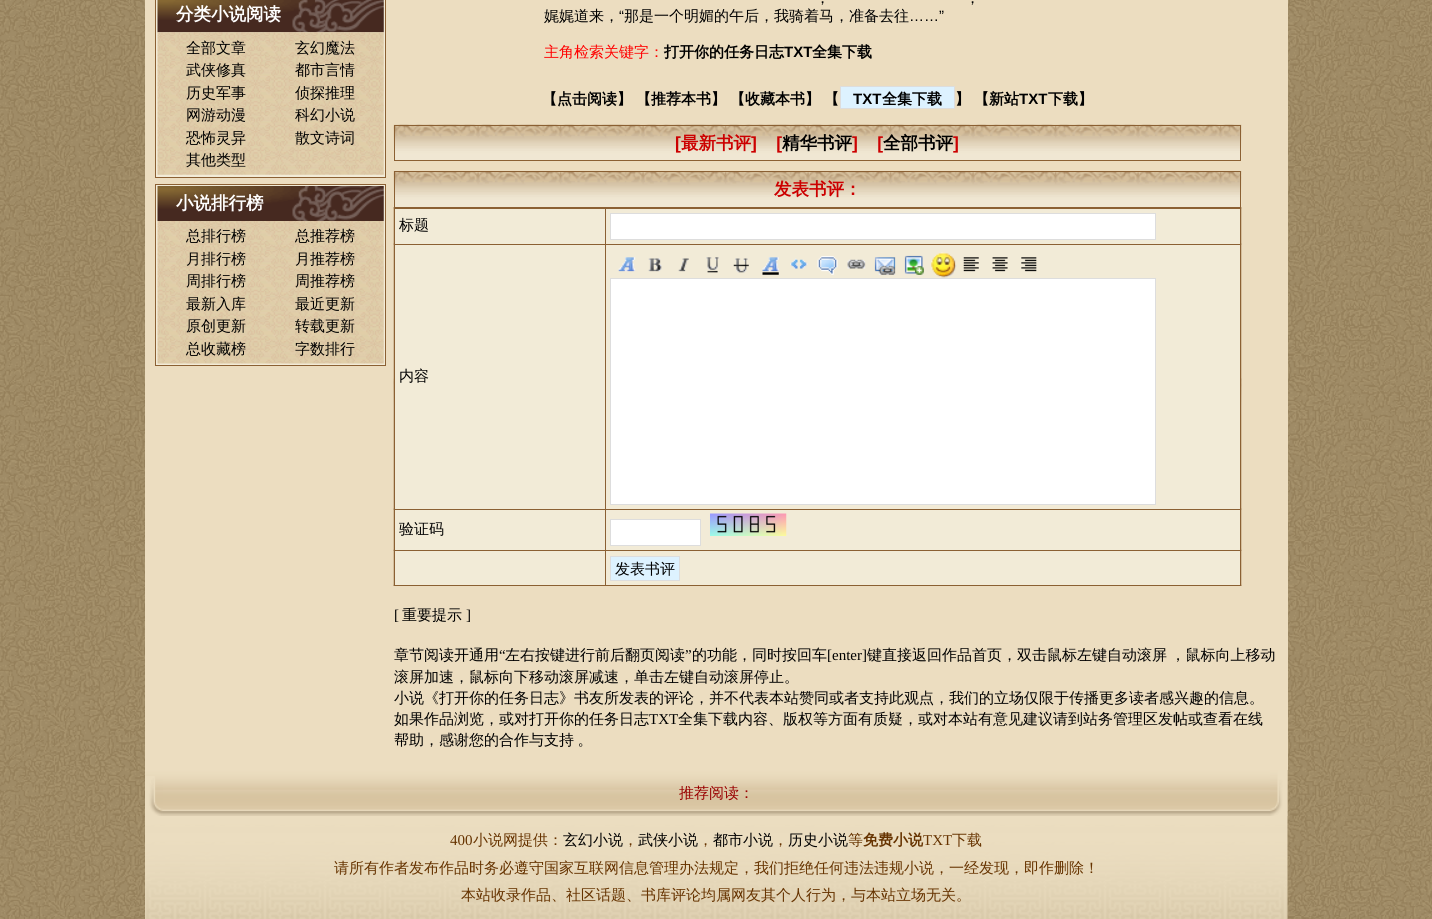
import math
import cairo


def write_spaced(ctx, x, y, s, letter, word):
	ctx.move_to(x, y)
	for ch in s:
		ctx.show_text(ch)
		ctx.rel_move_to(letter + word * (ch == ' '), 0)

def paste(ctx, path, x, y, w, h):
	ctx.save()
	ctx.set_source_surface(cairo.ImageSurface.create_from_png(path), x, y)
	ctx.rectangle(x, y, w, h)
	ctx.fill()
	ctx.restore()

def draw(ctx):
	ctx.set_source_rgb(1, 1, 1)
	ctx.paint()
	paste(ctx, 'media/1.png', 0, 0, 1432, 919)
	ctx.set_source_rgb(0.922, 0.867, 0.753)
	ctx.rectangle(145, 0, 1143, 770)
	ctx.fill()
	ctx.set_source_rgb(0.949, 0.918, 0.843)
	ctx.rectangle(155.5, -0.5, 230, 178)
	ctx.fill_preserve()
	ctx.set_source_rgb(0.545, 0.376, 0.2)
	ctx.set_line_width(1)
	ctx.stroke()
	paste(ctx, 'media/2.png', 157, 0, 227, 33)
	ctx.select_font_face('WenQuanYi Zen Hei', cairo.FONT_SLANT_NORMAL, cairo.FONT_WEIGHT_BOLD)
	ctx.set_font_size(17.5)
	ctx.set_source_rgb(1, 1, 1)
	ctx.move_to(176, 20)
	ctx.show_text('分类小说阅读')
	paste(ctx, 'media/3.png', 157, 32, 227, 143)
	ctx.select_font_face('WenQuanYi Zen Hei Medium')
	ctx.set_font_size(15)
	ctx.set_source_rgb(0, 0, 0)
	for x, y, s in [
		(186, 53, '全部文章'),
		(295, 53, '玄幻魔法'),
		(186, 75, '武侠修真'),
		(295, 75, '都市言情'),
		(186, 98, '历史军事'),
		(295, 98, '侦探推理'),
		(186, 120, '网游动漫'),
		(295, 120, '科幻小说'),
		(186, 143, '恐怖灵异'),
		(295, 143, '散文诗词'),
		(186, 165, '其他类型'),
	]:
		ctx.move_to(x, y)
		ctx.show_text(s)
	ctx.set_source_rgb(0.949, 0.918, 0.843)
	ctx.rectangle(155.5, 184.5, 230, 181)
	ctx.fill_preserve()
	ctx.set_source_rgb(0.545, 0.376, 0.2)
	ctx.stroke()
	paste(ctx, 'media/4.png', 157, 186, 227, 35)
	ctx.select_font_face('WenQuanYi Zen Hei', cairo.FONT_SLANT_NORMAL, cairo.FONT_WEIGHT_BOLD)
	ctx.set_font_size(17.5)
	ctx.set_source_rgb(1, 1, 1)
	ctx.move_to(176, 209)
	ctx.show_text('小说排行榜')
	paste(ctx, 'media/5.png', 157, 221, 227, 143)
	ctx.select_font_face('WenQuanYi Zen Hei Medium')
	ctx.set_font_size(15)
	ctx.set_source_rgb(0, 0, 0)
	for x, y, s in [
		(186, 241, '总排行榜'),
		(295, 241, '总推荐榜'),
		(186, 264, '月排行榜'),
		(295, 264, '月推荐榜'),
		(186, 286, '周排行榜'),
		(295, 286, '周推荐榜'),
		(186, 309, '最新入库'),
		(295, 309, '最近更新'),
		(186, 331, '原创更新'),
		(295, 331, '转载更新'),
		(186, 354, '总收藏榜'),
		(295, 354, '字数排行'),
		(815, 3, '，'),
		(965, 3, '，'),
		(544, 21, '娓娓道来，'),
	]:
		ctx.move_to(x, y)
		ctx.show_text(s)
	ctx.select_font_face('Liberation Sans')
	ctx.move_to(619, 21)
	ctx.show_text('“')
	ctx.select_font_face('WenQuanYi Zen Hei Medium')
	ctx.move_to(624, 21)
	ctx.show_text('那是一个明媚的午后，我骑着马，准备去往')
	ctx.select_font_face('Liberation Sans')
	ctx.move_to(909, 21)
	ctx.show_text('……”')
	ctx.select_font_face('WenQuanYi Zen Hei Medium')
	ctx.set_source_rgb(1, 0, 0)
	ctx.move_to(544, 57)
	ctx.show_text('主角检索关键字：')
	ctx.select_font_face('WenQuanYi Zen Hei', cairo.FONT_SLANT_NORMAL, cairo.FONT_WEIGHT_BOLD)
	ctx.set_source_rgb(0, 0, 0)
	ctx.move_to(664, 57)
	ctx.show_text('打开你的任务日志')
	ctx.select_font_face('Liberation Sans', cairo.FONT_SLANT_NORMAL, cairo.FONT_WEIGHT_BOLD)
	ctx.move_to(784, 57)
	ctx.show_text('TXT')
	ctx.select_font_face('WenQuanYi Zen Hei', cairo.FONT_SLANT_NORMAL, cairo.FONT_WEIGHT_BOLD)
	for x, y, s in [
		(812, 57, '全集下载'),
		(542, 104, '【点击阅读】'),
		(636, 104, '【推荐本书】'),
		(730, 104, '【收藏本书】'),
		(824, 104, '【'),
	]:
		ctx.move_to(x, y)
		ctx.show_text(s)
	ctx.set_source_rgb(0.867, 0.949, 1)
	ctx.rectangle(840.5, 86.5, 114, 22)
	ctx.fill_preserve()
	ctx.set_source_rgb(0.867, 0.867, 0.867)
	ctx.stroke()
	ctx.select_font_face('Liberation Sans', cairo.FONT_SLANT_NORMAL, cairo.FONT_WEIGHT_BOLD)
	ctx.set_source_rgb(0, 0, 0)
	ctx.move_to(853, 104)
	ctx.show_text('TXT')
	ctx.select_font_face('WenQuanYi Zen Hei', cairo.FONT_SLANT_NORMAL, cairo.FONT_WEIGHT_BOLD)
	for x, y, s in [
		(882, 104, '全集下载'),
		(955, 104, '】'),
		(974, 104, '【新站'),
	]:
		ctx.move_to(x, y)
		ctx.show_text(s)
	ctx.select_font_face('Liberation Sans', cairo.FONT_SLANT_NORMAL, cairo.FONT_WEIGHT_BOLD)
	ctx.move_to(1019, 104)
	ctx.show_text('TXT')
	ctx.select_font_face('WenQuanYi Zen Hei', cairo.FONT_SLANT_NORMAL, cairo.FONT_WEIGHT_BOLD)
	ctx.move_to(1048, 104)
	ctx.show_text('下载】')
	paste(ctx, 'media/6.png', 393, 124, 849, 37)
	ctx.rectangle(394.5, 125.5, 846, 35)
	ctx.set_source_rgb(0.545, 0.376, 0.2)
	ctx.stroke()
	ctx.select_font_face('Liberation Sans', cairo.FONT_SLANT_NORMAL, cairo.FONT_WEIGHT_BOLD)
	ctx.set_font_size(17.5)
	ctx.set_source_rgb(0.8, 0, 0)
	ctx.move_to(675, 149)
	ctx.show_text('[')
	ctx.select_font_face('WenQuanYi Zen Hei', cairo.FONT_SLANT_NORMAL, cairo.FONT_WEIGHT_BOLD)
	ctx.move_to(681, 149)
	ctx.show_text('最新书评')
	ctx.select_font_face('Liberation Sans', cairo.FONT_SLANT_NORMAL, cairo.FONT_WEIGHT_BOLD)
	ctx.move_to(751, 149)
	ctx.show_text(']    [')
	ctx.select_font_face('WenQuanYi Zen Hei', cairo.FONT_SLANT_NORMAL, cairo.FONT_WEIGHT_BOLD)
	ctx.set_source_rgb(0, 0, 0)
	ctx.move_to(782, 149)
	ctx.show_text('精华书评')
	ctx.select_font_face('Liberation Sans', cairo.FONT_SLANT_NORMAL, cairo.FONT_WEIGHT_BOLD)
	ctx.set_source_rgb(0.8, 0, 0)
	ctx.move_to(852, 149)
	ctx.show_text(']    [')
	ctx.select_font_face('WenQuanYi Zen Hei', cairo.FONT_SLANT_NORMAL, cairo.FONT_WEIGHT_BOLD)
	ctx.set_source_rgb(0, 0, 0)
	ctx.move_to(883, 149)
	ctx.show_text('全部书评')
	ctx.select_font_face('Liberation Sans', cairo.FONT_SLANT_NORMAL, cairo.FONT_WEIGHT_BOLD)
	ctx.set_source_rgb(0.8, 0, 0)
	ctx.move_to(953, 149)
	ctx.show_text(']')
	paste(ctx, 'media/7.png', 393, 207, 849, 379)
	ctx.set_source_rgb(0.545, 0.376, 0.2)
	ctx.rectangle(1240, 244, 1, 266)
	ctx.rectangle(606, 585, 1, 1)
	ctx.rectangle(394, 244, 1, 266)
	ctx.fill()
	paste(ctx, 'media/8.png', 393, 171, 849, 37)
	ctx.rectangle(394.5, 171.5, 846, 36)
	ctx.stroke()
	ctx.select_font_face('WenQuanYi Zen Hei', cairo.FONT_SLANT_NORMAL, cairo.FONT_WEIGHT_BOLD)
	ctx.set_source_rgb(0.8, 0, 0)
	ctx.move_to(774, 195)
	ctx.show_text('发表书评：')
	ctx.set_source_rgb(0.949, 0.918, 0.843)
	ctx.rectangle(606, 209, 634, 35)
	ctx.fill()
	ctx.set_source_rgb(0.545, 0.376, 0.2)
	ctx.rectangle(394, 208, 847, 1)
	ctx.fill()
	ctx.set_source_rgb(1, 1, 1)
	ctx.rectangle(610.5, 213.5, 545, 26)
	ctx.fill_preserve()
	ctx.set_source_rgb(0.867, 0.867, 0.867)
	ctx.stroke()
	ctx.set_source_rgb(0.949, 0.918, 0.843)
	ctx.rectangle(395, 209, 210, 35)
	ctx.fill()
	ctx.select_font_face('WenQuanYi Zen Hei Medium')
	ctx.set_font_size(15)
	ctx.set_source_rgb(0, 0, 0)
	ctx.move_to(399, 230)
	ctx.show_text('标题')
	ctx.set_source_rgb(0.949, 0.918, 0.843)
	ctx.rectangle(606, 245, 634, 264)
	ctx.fill()
	ctx.set_source_rgb(0.545, 0.376, 0.2)
	ctx.rectangle(394, 244, 847, 1)
	ctx.fill()
	paste(ctx, 'media/9.png', 618, 257, 18, 15)
	paste(ctx, 'media/10.png', 648, 258, 14, 14)
	paste(ctx, 'media/11.png', 678, 258, 11, 14)
	paste(ctx, 'media/12.png', 706, 257, 13, 16)
	paste(ctx, 'media/13.png', 733, 258, 16, 15)
	paste(ctx, 'media/14.png', 762, 257, 17, 18)
	paste(ctx, 'media/15.png', 790, 258, 18, 11)
	paste(ctx, 'media/16.png', 817, 256, 21, 19)
	paste(ctx, 'media/17.png', 847, 259, 19, 10)
	paste(ctx, 'media/18.png', 874, 257, 22, 18)
	paste(ctx, 'media/19.png', 904, 255, 20, 20)
	paste(ctx, 'media/20.png', 931, 252, 26, 26)
	paste(ctx, 'media/21.png', 963, 257, 16, 15)
	paste(ctx, 'media/22.png', 992, 257, 16, 15)
	paste(ctx, 'media/23.png', 1021, 257, 16, 15)
	ctx.set_source_rgb(1, 1, 1)
	ctx.rectangle(610.5, 278.5, 545, 226)
	ctx.fill_preserve()
	ctx.set_source_rgb(0.867, 0.867, 0.867)
	ctx.stroke()
	ctx.set_source_rgb(0.949, 0.918, 0.843)
	ctx.rectangle(395, 245, 210, 264)
	ctx.fill()
	ctx.set_source_rgb(0, 0, 0)
	ctx.move_to(399, 381)
	ctx.show_text('内容')
	ctx.set_source_rgb(0.949, 0.918, 0.843)
	ctx.rectangle(606, 510, 634, 40)
	ctx.fill()
	ctx.set_source_rgb(0.545, 0.376, 0.2)
	ctx.rectangle(394, 509, 847, 1)
	ctx.fill()
	ctx.set_source_rgb(1, 1, 1)
	ctx.rectangle(610.5, 519.5, 90, 26)
	ctx.fill_preserve()
	ctx.set_source_rgb(0.867, 0.867, 0.867)
	ctx.stroke()
	paste(ctx, 'media/24.png', 710, 513, 77, 23)
	ctx.set_source_rgb(0.949, 0.918, 0.843)
	ctx.rectangle(395, 510, 210, 40)
	ctx.fill()
	ctx.set_source_rgb(0, 0, 0)
	ctx.move_to(399, 534)
	ctx.show_text('验证码')
	ctx.set_source_rgb(0.949, 0.918, 0.843)
	ctx.rectangle(395, 551, 210, 34)
	ctx.rectangle(606, 551, 634, 34)
	ctx.fill()
	ctx.set_source_rgb(0.545, 0.376, 0.2)
	ctx.rectangle(605, 550, 2, 1)
	ctx.fill()
	ctx.set_source_rgb(0.867, 0.949, 1)
	ctx.rectangle(610.5, 556.5, 69, 24)
	ctx.fill_preserve()
	ctx.set_source_rgb(0.867, 0.867, 0.867)
	ctx.stroke()
	ctx.set_source_rgb(0, 0, 0)
	ctx.move_to(615, 574)
	ctx.show_text('发表书评')
	ctx.select_font_face('Liberation Serif')
	ctx.move_to(394, 620)
	ctx.show_text('[')
	ctx.select_font_face('WenQuanYi Zen Hei Medium')
	ctx.move_to(402, 620)
	ctx.show_text('重要提示')
	ctx.select_font_face('Liberation Serif')
	ctx.move_to(466, 620)
	ctx.show_text(']')
	ctx.select_font_face('WenQuanYi Zen Hei Medium')
	ctx.move_to(394, 660)
	ctx.show_text('章节阅读开通用')
	ctx.select_font_face('Liberation Serif')
	ctx.move_to(499, 660)
	ctx.show_text('“')
	ctx.select_font_face('WenQuanYi Zen Hei Medium')
	ctx.move_to(505, 660)
	ctx.show_text('左右按键进行前后翻页阅读')
	ctx.select_font_face('Liberation Serif')
	ctx.move_to(685, 660)
	ctx.show_text('”')
	ctx.select_font_face('WenQuanYi Zen Hei Medium')
	ctx.move_to(692, 660)
	ctx.show_text('的功能，同时按回车')
	ctx.select_font_face('Liberation Serif')
	ctx.move_to(827, 660)
	ctx.show_text('[enter]')
	ctx.select_font_face('WenQuanYi Zen Hei Medium')
	write_spaced(ctx, 867, 660, '键直接返回作品首页，双击鼠标左键自动滚屏 ，鼠标向上移动', 0, -1)
	for x, y, s in [
		(394, 682, '滚屏加速，鼠标向下移动滚屏减速，单击左键自动滚屏停止。'),
		(394, 703, '小说《打开你的任务日志》书友所发表的评论，并不代表本站赞同或者支持此观点，我们的立场仅限于传播更多读者感兴趣的信息。'),
		(394, 724, '如果作品浏览，或对打开你的任务日志'),
	]:
		ctx.move_to(x, y)
		ctx.show_text(s)
	ctx.select_font_face('Liberation Serif')
	ctx.move_to(649, 724)
	ctx.show_text('TXT')
	ctx.select_font_face('WenQuanYi Zen Hei Medium')
	ctx.move_to(678, 724)
	ctx.show_text('全集下载内容、版权等方面有质疑，或对本站有意见建议请到站务管理区发帖或查看在线')
	write_spaced(ctx, 394, 745, '帮助，感谢您的合作与支持 。', 0, -1)
	paste(ctx, 'media/25.png', 145, 770, 1143, 46)
	paste(ctx, 'media/26.png', 145, 776, 18, 40)
	ctx.set_source_rgb(0.6, 0, 0)
	ctx.move_to(679, 798)
	ctx.show_text('推荐阅读：')
	paste(ctx, 'media/27.png', 1270, 770, 18, 46)
	paste(ctx, 'media/28.png', 145, 816, 1143, 103)
	ctx.select_font_face('Liberation Serif')
	ctx.set_source_rgb(0.4, 0.2, 0)
	ctx.move_to(450, 845)
	ctx.show_text('400')
	ctx.select_font_face('WenQuanYi Zen Hei Medium')
	ctx.move_to(473, 845)
	ctx.show_text('小说网提供：')
	ctx.set_source_rgb(0, 0, 0)
	ctx.move_to(563, 845)
	ctx.show_text('玄幻小说')
	ctx.set_source_rgb(0.4, 0.2, 0)
	ctx.move_to(623, 845)
	ctx.show_text('，')
	ctx.set_source_rgb(0, 0, 0)
	ctx.move_to(638, 845)
	ctx.show_text('武侠小说')
	ctx.set_source_rgb(0.4, 0.2, 0)
	ctx.move_to(698, 845)
	ctx.show_text('，')
	ctx.set_source_rgb(0, 0, 0)
	ctx.move_to(713, 845)
	ctx.show_text('都市小说')
	ctx.set_source_rgb(0.4, 0.2, 0)
	ctx.move_to(773, 845)
	ctx.show_text('，')
	ctx.set_source_rgb(0, 0, 0)
	ctx.move_to(788, 845)
	ctx.show_text('历史小说')
	ctx.set_source_rgb(0.4, 0.2, 0)
	ctx.move_to(848, 845)
	ctx.show_text('等')
	ctx.select_font_face('WenQuanYi Zen Hei', cairo.FONT_SLANT_NORMAL, cairo.FONT_WEIGHT_BOLD)
	ctx.move_to(863, 845)
	ctx.show_text('免费小说')
	ctx.select_font_face('Liberation Serif')
	ctx.move_to(923, 845)
	ctx.show_text('TXT')
	ctx.select_font_face('WenQuanYi Zen Hei Medium')
	for x, y, s in [
		(952, 845, '下载'),
		(334, 873, '请所有作者发布作品时务必遵守国家互联网信息管理办法规定，我们拒绝任何违法违规小说，一经发现，即作删除！'),
		(461, 900, '本站收录作品、社区话题、书库评论均属网友其个人行为，与本站立场无关。'),
	]:
		ctx.move_to(x, y)
		ctx.show_text(s)


surface = cairo.ImageSurface(cairo.FORMAT_RGB24, 1432, 919)
ctx = cairo.Context(surface)
options = cairo.FontOptions()
options.set_hint_metrics(cairo.HINT_METRICS_OFF)
options.set_hint_style(cairo.HINT_STYLE_NONE)
ctx.set_font_options(options)
ctx.set_miter_limit(4)
draw(ctx)
surface.write_to_png('image.png')
